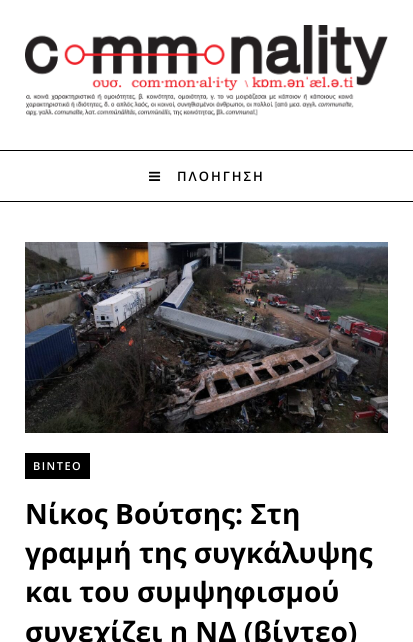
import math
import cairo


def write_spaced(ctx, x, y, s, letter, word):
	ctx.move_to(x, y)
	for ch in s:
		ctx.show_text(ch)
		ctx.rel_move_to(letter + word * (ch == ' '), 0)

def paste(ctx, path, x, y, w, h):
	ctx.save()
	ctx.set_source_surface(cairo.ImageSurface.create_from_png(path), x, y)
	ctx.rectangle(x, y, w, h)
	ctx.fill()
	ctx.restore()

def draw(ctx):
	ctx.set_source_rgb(1, 1, 1)
	ctx.paint()
	paste(ctx, 'media/1.png', 25, 25, 363, 91)
	ctx.set_source_rgb(0, 0, 0)
	ctx.rectangle(0, 150, 413, 1)
	ctx.fill()
	ctx.rectangle(0, 201, 413, 1)
	ctx.fill()
	paste(ctx, 'media/2.png', 149, 171, 12, 10)
	ctx.select_font_face('Open Sans SemiBold')
	ctx.set_font_size(13)
	write_spaced(ctx, 177, 181, 'ΠΛΟΗΓΗΣΗ', 2, 0)
	paste(ctx, 'media/3.png', 25, 242, 363, 191)
	ctx.rectangle(25, 453, 65, 26)
	ctx.fill()
	ctx.set_font_size(11)
	ctx.set_source_rgb(1, 1, 1)
	write_spaced(ctx, 33, 470, 'ΒΙΝΤΕΟ', 1.5, 0)
	ctx.select_font_face('Open Sans', cairo.FONT_SLANT_NORMAL, cairo.FONT_WEIGHT_BOLD)
	ctx.set_font_size(28)
	ctx.set_source_rgb(0, 0, 0)
	for x, y, s in [
		(25, 524, 'Νίκος Βούτσης: Στη'),
		(25, 563, 'γραμμή της συγκάλυψης'),
		(25, 602, 'και του συμψηφισμού'),
		(25, 642, 'συνεχίζει η ΝΔ (βίντεο)'),
	]:
		ctx.move_to(x, y)
		ctx.show_text(s)


surface = cairo.ImageSurface(cairo.FORMAT_RGB24, 413, 642)
ctx = cairo.Context(surface)
options = cairo.FontOptions()
options.set_hint_metrics(cairo.HINT_METRICS_OFF)
options.set_hint_style(cairo.HINT_STYLE_NONE)
ctx.set_font_options(options)
ctx.set_miter_limit(4)
draw(ctx)
surface.write_to_png('image.png')
